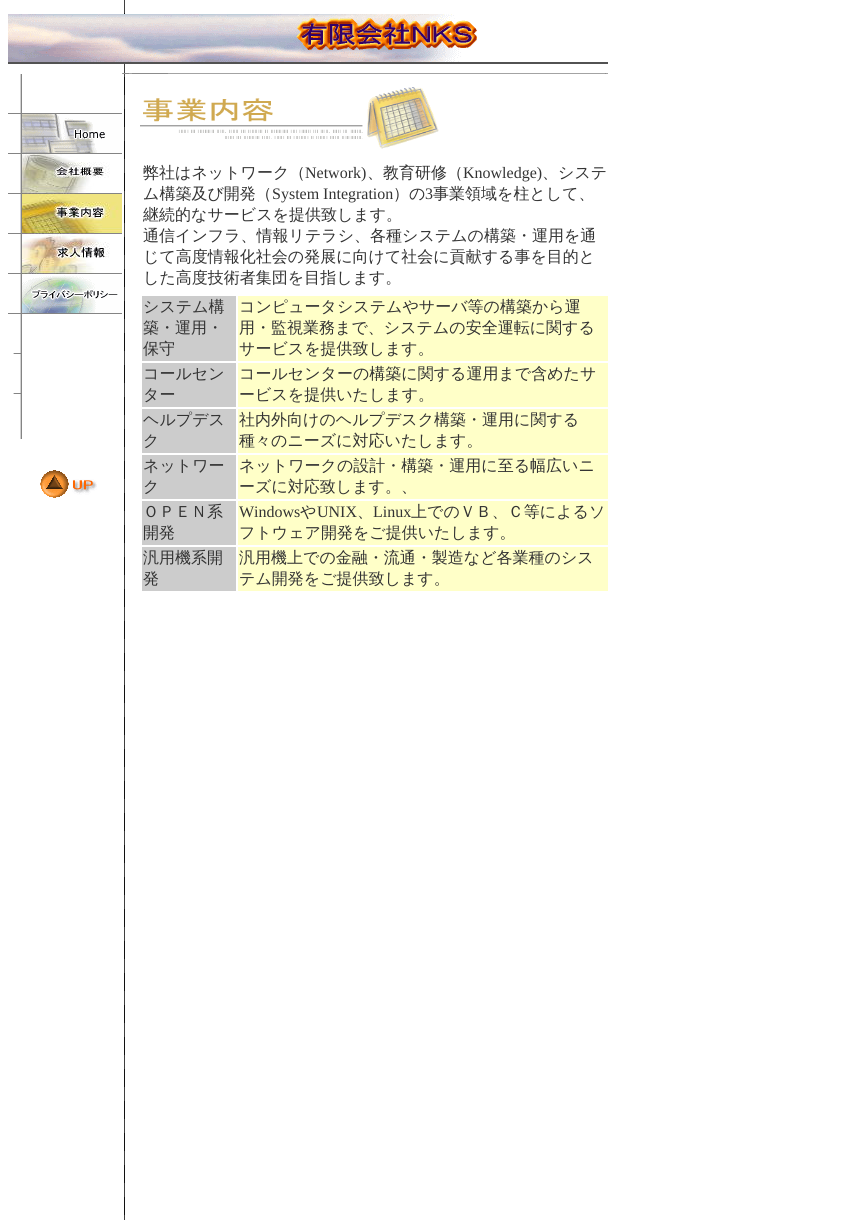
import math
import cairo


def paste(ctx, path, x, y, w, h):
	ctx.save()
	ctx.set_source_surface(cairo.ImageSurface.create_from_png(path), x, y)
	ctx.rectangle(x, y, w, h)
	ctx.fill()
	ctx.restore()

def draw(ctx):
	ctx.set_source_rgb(1, 1, 1)
	ctx.paint()
	paste(ctx, 'media/1.png', 124, 0, 1, 1220)
	paste(ctx, 'media/2.png', 8, 14, 600, 60)
	paste(ctx, 'media/3.png', 8, 74, 14, 365)
	ctx.set_source_rgb(0.518, 0.518, 0.518)
	ctx.rectangle(22, 113, 100, 1)
	ctx.fill()
	paste(ctx, 'media/4.png', 22, 114, 100, 40)
	paste(ctx, 'media/5.png', 22, 154, 100, 40)
	paste(ctx, 'media/6.png', 22, 194, 100, 40)
	paste(ctx, 'media/7.png', 22, 234, 100, 40)
	paste(ctx, 'media/8.png', 22, 275, 100, 39)
	paste(ctx, 'media/9.png', 140, 87, 299, 62)
	paste(ctx, 'media/10.png', 40, 470, 57, 28)
	ctx.select_font_face('WenQuanYi Zen Hei Medium')
	ctx.set_font_size(16)
	ctx.set_source_rgb(0.2, 0.2, 0.2)
	ctx.move_to(143, 178)
	ctx.show_text('弊社はネットワーク（')
	ctx.select_font_face('Liberation Serif')
	ctx.move_to(305, 178)
	ctx.show_text('Network)')
	ctx.select_font_face('WenQuanYi Zen Hei Medium')
	ctx.move_to(367, 178)
	ctx.show_text('、教育研修（')
	ctx.select_font_face('Liberation Serif')
	ctx.move_to(463, 178)
	ctx.show_text('Knowledge)')
	ctx.select_font_face('WenQuanYi Zen Hei Medium')
	ctx.move_to(542, 178)
	ctx.show_text('、システ')
	ctx.move_to(143, 199)
	ctx.show_text('ム構築及び開発（')
	ctx.select_font_face('Liberation Serif')
	ctx.move_to(272, 199)
	ctx.show_text('System Integration')
	ctx.select_font_face('WenQuanYi Zen Hei Medium')
	ctx.move_to(393, 199)
	ctx.show_text('）の')
	ctx.select_font_face('Liberation Serif')
	ctx.move_to(425, 199)
	ctx.show_text('3')
	ctx.select_font_face('WenQuanYi Zen Hei Medium')
	for x, y, s in [
		(433, 199, '事業領域を柱として、'),
		(143, 220, '継続的なサービスを提供致します。'),
		(143, 241, '通信インフラ、情報リテラシ、各種システムの構築・運用を通'),
		(143, 262, 'じて高度情報化社会の発展に向けて社会に貢献する事を目的と'),
		(143, 283, 'した高度技術者集団を目指します。'),
	]:
		ctx.move_to(x, y)
		ctx.show_text(s)
	ctx.set_source_rgb(0.8, 0.8, 0.8)
	ctx.rectangle(142, 296, 94, 65)
	ctx.fill()
	ctx.set_source_rgb(0.2, 0.2, 0.2)
	for x, y, s in [
		(143, 312, 'システム構'),
		(143, 333, '築・運用・'),
		(143, 354, '保守'),
	]:
		ctx.move_to(x, y)
		ctx.show_text(s)
	ctx.set_source_rgb(1, 1, 0.784)
	ctx.rectangle(238, 296, 370, 65)
	ctx.fill()
	ctx.set_source_rgb(0.2, 0.2, 0.2)
	for x, y, s in [
		(239, 312, 'コンピュータシステムやサーバ等の構築から運'),
		(239, 333, '用・監視業務まで、システムの安全運転に関する'),
		(239, 354, 'サービスを提供致します。'),
	]:
		ctx.move_to(x, y)
		ctx.show_text(s)
	ctx.set_source_rgb(0.8, 0.8, 0.8)
	ctx.rectangle(142, 363, 94, 44)
	ctx.fill()
	ctx.set_source_rgb(0.2, 0.2, 0.2)
	ctx.move_to(143, 379)
	ctx.show_text('コールセン')
	ctx.move_to(143, 400)
	ctx.show_text('ター')
	ctx.set_source_rgb(1, 1, 0.784)
	ctx.rectangle(238, 363, 370, 44)
	ctx.fill()
	ctx.set_source_rgb(0.2, 0.2, 0.2)
	ctx.move_to(239, 379)
	ctx.show_text('コールセンターの構築に関する運用まで含めたサ')
	ctx.move_to(239, 400)
	ctx.show_text('ービスを提供いたします。')
	ctx.set_source_rgb(0.8, 0.8, 0.8)
	ctx.rectangle(142, 409, 94, 44)
	ctx.fill()
	ctx.set_source_rgb(0.2, 0.2, 0.2)
	ctx.move_to(143, 425)
	ctx.show_text('ヘルプデス')
	ctx.move_to(143, 446)
	ctx.show_text('ク')
	ctx.set_source_rgb(1, 1, 0.784)
	ctx.rectangle(238, 409, 370, 44)
	ctx.fill()
	ctx.set_source_rgb(0.2, 0.2, 0.2)
	ctx.move_to(239, 425)
	ctx.show_text('社内外向けのヘルプデスク構築・運用に関する')
	ctx.move_to(239, 446)
	ctx.show_text('種々のニーズに対応いたします。')
	ctx.set_source_rgb(0.8, 0.8, 0.8)
	ctx.rectangle(142, 455, 94, 44)
	ctx.fill()
	ctx.set_source_rgb(0.2, 0.2, 0.2)
	ctx.move_to(143, 471)
	ctx.show_text('ネットワー')
	ctx.move_to(143, 492)
	ctx.show_text('ク')
	ctx.set_source_rgb(1, 1, 0.784)
	ctx.rectangle(238, 455, 370, 44)
	ctx.fill()
	ctx.set_source_rgb(0.2, 0.2, 0.2)
	ctx.move_to(239, 471)
	ctx.show_text('ネットワークの設計・構築・運用に至る幅広いニ')
	ctx.move_to(239, 492)
	ctx.show_text('ーズに対応致します。、')
	ctx.set_source_rgb(0.8, 0.8, 0.8)
	ctx.rectangle(142, 501, 94, 44)
	ctx.fill()
	ctx.set_source_rgb(0.2, 0.2, 0.2)
	ctx.move_to(143, 517)
	ctx.show_text('ＯＰＥＮ系')
	ctx.move_to(143, 538)
	ctx.show_text('開発')
	ctx.set_source_rgb(1, 1, 0.784)
	ctx.rectangle(238, 501, 370, 44)
	ctx.fill()
	ctx.select_font_face('Liberation Serif')
	ctx.set_source_rgb(0.2, 0.2, 0.2)
	ctx.move_to(239, 517)
	ctx.show_text('Windows')
	ctx.select_font_face('WenQuanYi Zen Hei Medium')
	ctx.move_to(300, 517)
	ctx.show_text('や')
	ctx.select_font_face('Liberation Serif')
	ctx.move_to(317, 517)
	ctx.show_text('UNIX')
	ctx.select_font_face('WenQuanYi Zen Hei Medium')
	ctx.move_to(357, 517)
	ctx.show_text('、')
	ctx.select_font_face('Liberation Serif')
	ctx.move_to(373, 517)
	ctx.show_text('Linux')
	ctx.select_font_face('WenQuanYi Zen Hei Medium')
	ctx.move_to(411, 517)
	ctx.show_text('上でのＶＢ、Ｃ等によるソ')
	ctx.move_to(239, 538)
	ctx.show_text('フトウェア開発をご提供いたします。')
	ctx.set_source_rgb(0.8, 0.8, 0.8)
	ctx.rectangle(142, 547, 94, 44)
	ctx.fill()
	ctx.set_source_rgb(0.2, 0.2, 0.2)
	ctx.move_to(143, 563)
	ctx.show_text('汎用機系開')
	ctx.move_to(143, 584)
	ctx.show_text('発')
	ctx.set_source_rgb(1, 1, 0.784)
	ctx.rectangle(238, 547, 370, 44)
	ctx.fill()
	ctx.set_source_rgb(0.2, 0.2, 0.2)
	ctx.move_to(239, 563)
	ctx.show_text('汎用機上での金融・流通・製造など各業種のシス')
	ctx.move_to(239, 584)
	ctx.show_text('テム開発をご提供致します。')


surface = cairo.ImageSurface(cairo.FORMAT_RGB24, 843, 1220)
ctx = cairo.Context(surface)
options = cairo.FontOptions()
options.set_hint_metrics(cairo.HINT_METRICS_OFF)
options.set_hint_style(cairo.HINT_STYLE_NONE)
ctx.set_font_options(options)
ctx.set_miter_limit(4)
draw(ctx)
surface.write_to_png('image.png')
